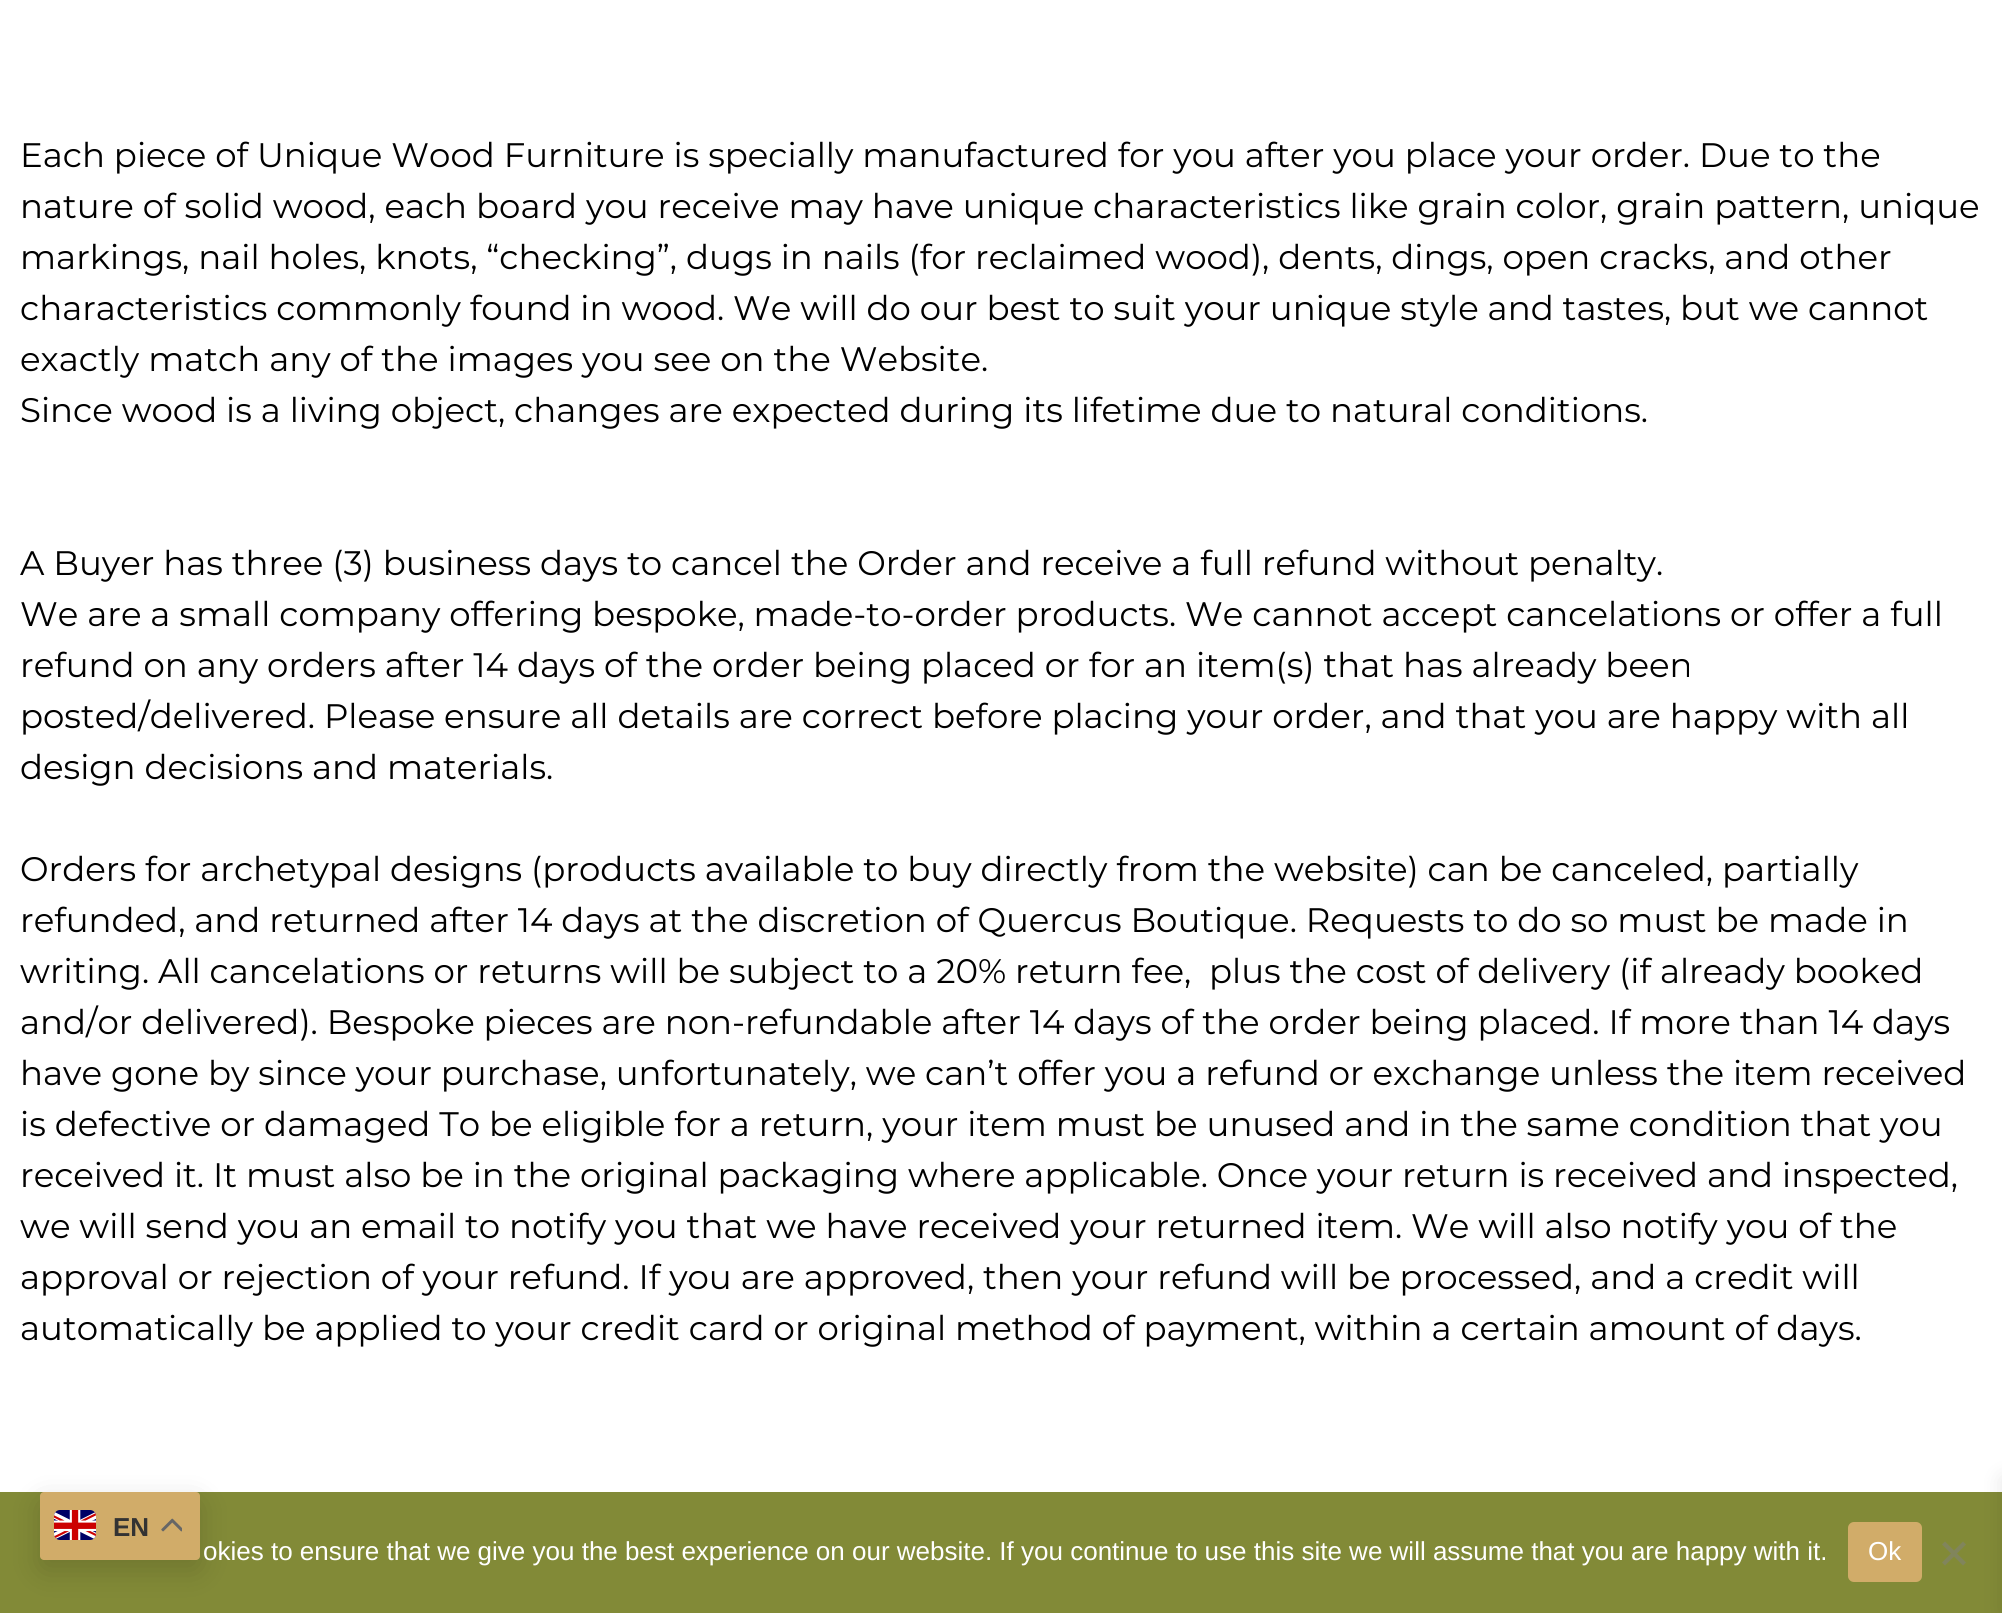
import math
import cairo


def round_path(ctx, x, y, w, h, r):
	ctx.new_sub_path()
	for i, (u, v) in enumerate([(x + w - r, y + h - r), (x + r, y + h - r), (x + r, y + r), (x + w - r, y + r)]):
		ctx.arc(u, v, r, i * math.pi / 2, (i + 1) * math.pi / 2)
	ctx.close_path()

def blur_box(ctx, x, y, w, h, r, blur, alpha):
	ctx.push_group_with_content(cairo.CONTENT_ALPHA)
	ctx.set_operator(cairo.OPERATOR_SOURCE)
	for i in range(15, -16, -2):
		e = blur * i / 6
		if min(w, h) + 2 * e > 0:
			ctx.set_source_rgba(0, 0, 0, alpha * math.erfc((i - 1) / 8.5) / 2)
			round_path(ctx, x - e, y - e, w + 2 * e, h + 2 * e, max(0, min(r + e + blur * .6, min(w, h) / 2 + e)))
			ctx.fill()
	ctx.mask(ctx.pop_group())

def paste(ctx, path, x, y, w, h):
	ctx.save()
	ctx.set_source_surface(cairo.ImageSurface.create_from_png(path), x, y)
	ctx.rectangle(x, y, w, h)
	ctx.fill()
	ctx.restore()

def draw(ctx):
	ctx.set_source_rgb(1, 1, 1)
	ctx.paint()
	ctx.select_font_face('Montserrat')
	ctx.set_font_size(34)
	ctx.set_source_rgb(0, 0, 0)
	for x, y, s in [
		(20, 167, 'Each piece of Unique Wood Furniture is specially manufactured for you after you place your order. Due to the'),
		(20, 218, 'nature of solid wood, each board you receive may have unique characteristics like grain color, grain pattern, unique'),
		(20, 269, 'markings, nail holes, knots, “checking”, dugs in nails (for reclaimed wood), dents, dings, open cracks, and other'),
		(20, 320, 'characteristics commonly found in wood. We will do our best to suit your unique style and tastes, but we cannot'),
		(20, 371, 'exactly match any of the images you see on the Website.'),
		(20, 422, 'Since wood is a living object, changes are expected during its lifetime due to natural conditions.'),
		(20, 575, 'A Buyer has three (3) business days to cancel the Order and receive a full refund without penalty.'),
		(20, 626, 'We are a small company offering bespoke, made-to-order products. We cannot accept cancelations or offer a full'),
		(20, 677, 'refund on any orders after 14 days of the order being placed or for an item(s) that has already been'),
		(20, 728, 'posted/delivered. Please ensure all details are correct before placing your order, and that you are happy with all'),
		(20, 779, 'design decisions and materials.'),
		(20, 881, 'Orders for archetypal designs (products available to buy directly from the website) can be canceled, partially'),
		(20, 932, 'refunded, and returned after 14 days at the discretion of Quercus Boutique. Requests to do so must be made in'),
		(20, 983, 'writing. All cancelations or returns will be subject to a 20% return fee,  plus the cost of delivery (if already booked'),
		(20, 1034, 'and/or delivered). Bespoke pieces are non-refundable after 14 days of the order being placed. If more than 14 days'),
		(20, 1085, 'have gone by since your purchase, unfortunately, we can’t offer you a refund or exchange unless the item received'),
		(20, 1136, 'is defective or damaged To be eligible for a return, your item must be unused and in the same condition that you'),
		(20, 1187, 'received it. It must also be in the original packaging where applicable. Once your return is received and inspected,'),
		(20, 1238, 'we will send you an email to notify you that we have received your returned item. We will also notify you of the'),
		(20, 1289, 'approval or rejection of your refund. If you are approved, then your refund will be processed, and a credit will'),
		(20, 1340, 'automatically be applied to your credit card or original method of payment, within a certain amount of days.'),
	]:
		ctx.move_to(x, y)
		ctx.show_text(s)
	ctx.set_source_rgb(0.51, 0.541, 0.216)
	ctx.rectangle(0, 1492, 2002, 121)
	ctx.fill()
	ctx.set_source_rgb(0, 0, 0)
	blur_box(ctx, 40, 1502, 160, 68, 4, 15, 0.15)
	ctx.set_source_rgb(0.82, 0.675, 0.412)
	round_path(ctx, 40, 1492, 160, 68, 4)
	ctx.fill()
	paste(ctx, 'media/1.png', 54, 1510, 42, 30)
	ctx.select_font_face('Liberation Sans', cairo.FONT_SLANT_NORMAL, cairo.FONT_WEIGHT_BOLD)
	ctx.set_font_size(26)
	ctx.set_source_rgb(0.2, 0.2, 0.2)
	ctx.move_to(113, 1536)
	ctx.show_text('EN')
	paste(ctx, 'media/2.png', 161, 1518, 21, 14)
	ctx.set_source_rgb(0, 0, 0)
	blur_box(ctx, 2002, 1478, 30, 134, 0, 10, 0.1)
	ctx.select_font_face('Liberation Sans')
	ctx.set_source_rgb(1, 1, 1)
	ctx.move_to(203, 1560)
	ctx.show_text('okies to ensure that we give you the best experience on our website. If you continue to use this site we will assume that you are happy with it.')
	ctx.set_source_rgb(0.82, 0.675, 0.412)
	round_path(ctx, 1848, 1522, 74, 60, 6)
	ctx.fill()
	ctx.set_source_rgb(1, 1, 1)
	ctx.move_to(1868, 1560)
	ctx.show_text('Ok')
	ctx.set_source_rgb(0.506, 0.522, 0.361)
	ctx.new_path()
	ctx.move_to(1963, 1541.5)
	ctx.line_to(1966, 1544.5)
	ctx.line_to(1945, 1565.5)
	ctx.line_to(1942, 1562.5)
	ctx.close_path()
	ctx.fill()
	ctx.new_path()
	ctx.move_to(1942, 1544.5)
	ctx.line_to(1945, 1541.5)
	ctx.line_to(1966, 1562.5)
	ctx.line_to(1963, 1565.5)
	ctx.close_path()
	ctx.fill()


surface = cairo.ImageSurface(cairo.FORMAT_RGB24, 2002, 1613)
ctx = cairo.Context(surface)
options = cairo.FontOptions()
options.set_hint_metrics(cairo.HINT_METRICS_OFF)
options.set_hint_style(cairo.HINT_STYLE_NONE)
ctx.set_font_options(options)
ctx.set_miter_limit(4)
draw(ctx)
surface.write_to_png('image.png')
